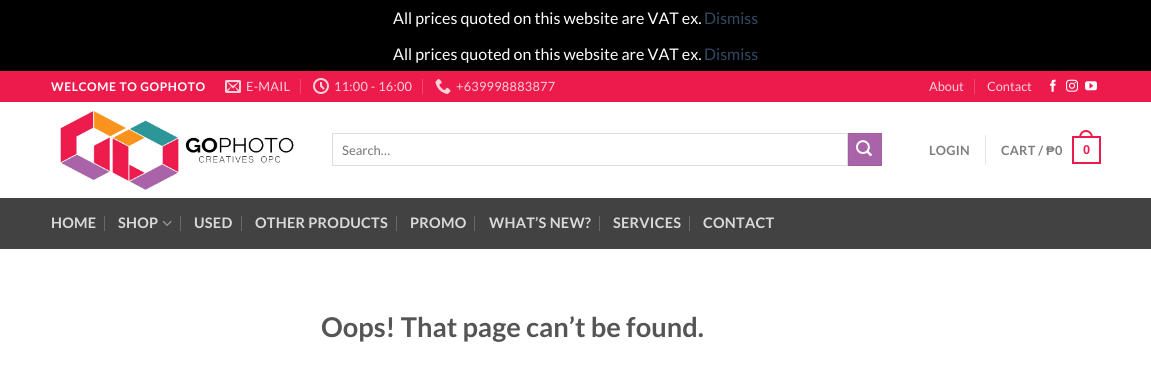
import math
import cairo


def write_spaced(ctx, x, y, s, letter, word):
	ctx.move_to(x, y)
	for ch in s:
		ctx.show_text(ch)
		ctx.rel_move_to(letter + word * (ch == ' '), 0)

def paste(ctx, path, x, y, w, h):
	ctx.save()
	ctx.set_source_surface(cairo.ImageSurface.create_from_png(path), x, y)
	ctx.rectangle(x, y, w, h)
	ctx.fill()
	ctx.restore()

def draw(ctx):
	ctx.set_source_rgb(0, 0, 0)
	ctx.paint()
	ctx.select_font_face('Lato')
	ctx.set_font_size(16)
	ctx.set_source_rgb(1, 1, 1)
	ctx.move_to(393, 24)
	ctx.show_text('All prices quoted on this website are VAT ex.')
	ctx.set_source_rgb(0.2, 0.282, 0.384)
	ctx.move_to(704, 24)
	ctx.show_text('Dismiss')
	ctx.set_source_rgb(1, 1, 1)
	ctx.move_to(393, 60)
	ctx.show_text('All prices quoted on this website are VAT ex.')
	ctx.set_source_rgb(0.2, 0.282, 0.384)
	ctx.move_to(704, 60)
	ctx.show_text('Dismiss')
	ctx.set_source_rgb(1, 1, 1)
	ctx.rectangle(0, 102, 1151, 267)
	ctx.fill()
	ctx.set_source_rgb(0.929, 0.106, 0.298)
	ctx.rectangle(0, 71, 1151, 31)
	ctx.fill()
	ctx.select_font_face('Lato', cairo.FONT_SLANT_NORMAL, cairo.FONT_WEIGHT_BOLD)
	ctx.set_font_size(12)
	ctx.set_source_rgb(1, 1, 1)
	write_spaced(ctx, 51, 91, 'WELCOME TO GOPHOTO', 0.6, 0)
	paste(ctx, 'media/1.png', 225, 80, 16, 13)
	ctx.select_font_face('Lato')
	ctx.set_font_size(12.75)
	ctx.set_source_rgb(0.984, 0.82, 0.859)
	write_spaced(ctx, 246, 91, 'E-MAIL', 0.25, 0)
	ctx.set_source_rgb(0.945, 0.286, 0.439)
	ctx.rectangle(300, 79, 1, 15)
	ctx.fill()
	paste(ctx, 'media/2.png', 313, 78, 16, 16)
	ctx.set_source_rgb(0.984, 0.82, 0.859)
	write_spaced(ctx, 334, 91, '11:00 - 16:00', 0.25, 0)
	ctx.set_source_rgb(0.945, 0.286, 0.439)
	ctx.rectangle(422, 79, 1, 15)
	ctx.fill()
	paste(ctx, 'media/3.png', 435, 79, 16, 15)
	ctx.set_source_rgb(0.984, 0.82, 0.859)
	write_spaced(ctx, 456, 91, '+639998883877', 0.25, 0)
	ctx.move_to(929, 91)
	ctx.show_text('About')
	ctx.set_source_rgb(0.945, 0.286, 0.439)
	ctx.rectangle(974, 79, 1, 15)
	ctx.fill()
	ctx.set_source_rgb(0.984, 0.82, 0.859)
	ctx.move_to(987, 91)
	ctx.show_text('Contact')
	paste(ctx, 'media/4.png', 1050, 79, 6, 13)
	paste(ctx, 'media/5.png', 1066, 79, 12, 13)
	paste(ctx, 'media/6.png', 1085, 81, 12, 10)
	paste(ctx, 'media/7.png', 60, 111, 234, 79)
	ctx.rectangle(332.5, 133.5, 515, 32)
	ctx.set_source_rgb(0.867, 0.867, 0.867)
	ctx.set_line_width(1)
	ctx.stroke()
	ctx.set_font_size(13)
	ctx.set_source_rgb(0.459, 0.459, 0.459)
	ctx.move_to(342, 155)
	ctx.show_text('Search…')
	ctx.set_source_rgb(0.663, 0.388, 0.663)
	ctx.rectangle(848.5, 133.5, 33, 32)
	ctx.fill_preserve()
	ctx.set_source_rgb(0.631, 0.369, 0.631)
	ctx.stroke()
	paste(ctx, 'media/8.png', 856, 140, 16, 16)
	ctx.select_font_face('Lato', cairo.FONT_SLANT_NORMAL, cairo.FONT_WEIGHT_BOLD)
	ctx.set_font_size(12.75)
	ctx.set_source_rgb(0.49, 0.49, 0.49)
	write_spaced(ctx, 929, 155, 'LOGIN', 0.25, 0)
	ctx.set_source_rgb(0.902, 0.902, 0.902)
	ctx.rectangle(985, 135, 1, 30)
	ctx.fill()
	ctx.set_source_rgb(0.49, 0.49, 0.49)
	write_spaced(ctx, 1001, 155, 'CART /', 0.25, 0)
	ctx.select_font_face('Liberation Sans', cairo.FONT_SLANT_NORMAL, cairo.FONT_WEIGHT_BOLD)
	write_spaced(ctx, 1046, 155, '₱', 0.25, 0)
	ctx.select_font_face('Lato', cairo.FONT_SLANT_NORMAL, cairo.FONT_WEIGHT_BOLD)
	write_spaced(ctx, 1055, 155, '0', 0.25, 0)
	ctx.rectangle(1073, 137, 27, 26)
	ctx.set_source_rgb(0.929, 0.106, 0.298)
	ctx.set_line_width(2)
	ctx.stroke()
	ctx.set_fill_rule(cairo.FILL_RULE_EVEN_ODD)
	ctx.new_path()
	ctx.move_to(1086, 130)
	ctx.curve_to(1090.5, 130, 1093, 134, 1093, 138)
	ctx.line_to(1079, 138)
	ctx.curve_to(1079, 134, 1081.5, 130, 1086, 130)
	ctx.close_path()
	ctx.move_to(1086, 132)
	ctx.curve_to(1089.5, 132, 1091, 135, 1091, 138)
	ctx.line_to(1081, 138)
	ctx.curve_to(1081, 135, 1082.5, 132, 1086, 132)
	ctx.close_path()
	ctx.fill()
	ctx.select_font_face('Liberation Sans', cairo.FONT_SLANT_NORMAL, cairo.FONT_WEIGHT_BOLD)
	write_spaced(ctx, 1083, 154, '0', 0.25, 0)
	ctx.set_source_rgb(0.259, 0.259, 0.259)
	ctx.rectangle(0, 198, 1151, 51)
	ctx.fill()
	ctx.set_source_rgb(0.278, 0.278, 0.278)
	ctx.rectangle(51, 198, 1050, 1)
	ctx.fill()
	ctx.select_font_face('Lato', cairo.FONT_SLANT_NORMAL, cairo.FONT_WEIGHT_BOLD)
	ctx.set_font_size(14.5)
	ctx.set_source_rgb(0.851, 0.851, 0.851)
	write_spaced(ctx, 51, 228, 'HOME', 0.25, 0)
	ctx.set_source_rgb(0.408, 0.408, 0.408)
	ctx.rectangle(104, 216, 1, 15)
	ctx.fill()
	ctx.set_source_rgb(0.851, 0.851, 0.851)
	write_spaced(ctx, 118, 228, 'SHOP', 0.25, 0)
	paste(ctx, 'media/9.png', 162, 220, 10, 6)
	ctx.set_source_rgb(0.408, 0.408, 0.408)
	ctx.rectangle(180, 216, 1, 15)
	ctx.fill()
	ctx.set_source_rgb(0.851, 0.851, 0.851)
	write_spaced(ctx, 194, 228, 'USED', 0.25, 0)
	ctx.set_source_rgb(0.408, 0.408, 0.408)
	ctx.rectangle(241, 216, 1, 15)
	ctx.fill()
	ctx.set_source_rgb(0.851, 0.851, 0.851)
	write_spaced(ctx, 255, 228, 'OTHER PRODUCTS', 0.25, 0)
	ctx.set_source_rgb(0.408, 0.408, 0.408)
	ctx.rectangle(396, 216, 1, 15)
	ctx.fill()
	ctx.set_source_rgb(0.851, 0.851, 0.851)
	write_spaced(ctx, 410, 228, 'PROMO', 0.25, 0)
	ctx.set_source_rgb(0.408, 0.408, 0.408)
	ctx.rectangle(474, 216, 1, 15)
	ctx.fill()
	ctx.set_source_rgb(0.851, 0.851, 0.851)
	write_spaced(ctx, 489, 228, 'WHAT’S NEW?', 0.25, 0)
	ctx.set_source_rgb(0.408, 0.408, 0.408)
	ctx.rectangle(599, 216, 1, 15)
	ctx.fill()
	ctx.set_source_rgb(0.851, 0.851, 0.851)
	write_spaced(ctx, 613, 228, 'SERVICES', 0.25, 0)
	ctx.set_source_rgb(0.408, 0.408, 0.408)
	ctx.rectangle(689, 216, 1, 15)
	ctx.fill()
	ctx.set_source_rgb(0.851, 0.851, 0.851)
	write_spaced(ctx, 703, 228, 'CONTACT', 0.25, 0)
	ctx.set_font_size(27.25)
	ctx.set_source_rgb(0.333, 0.333, 0.333)
	ctx.move_to(321, 337)
	ctx.show_text('Oops! That page can’t be found.')


surface = cairo.ImageSurface(cairo.FORMAT_RGB24, 1151, 369)
ctx = cairo.Context(surface)
options = cairo.FontOptions()
options.set_hint_metrics(cairo.HINT_METRICS_OFF)
options.set_hint_style(cairo.HINT_STYLE_NONE)
ctx.set_font_options(options)
ctx.set_miter_limit(4)
draw(ctx)
surface.write_to_png('image.png')
